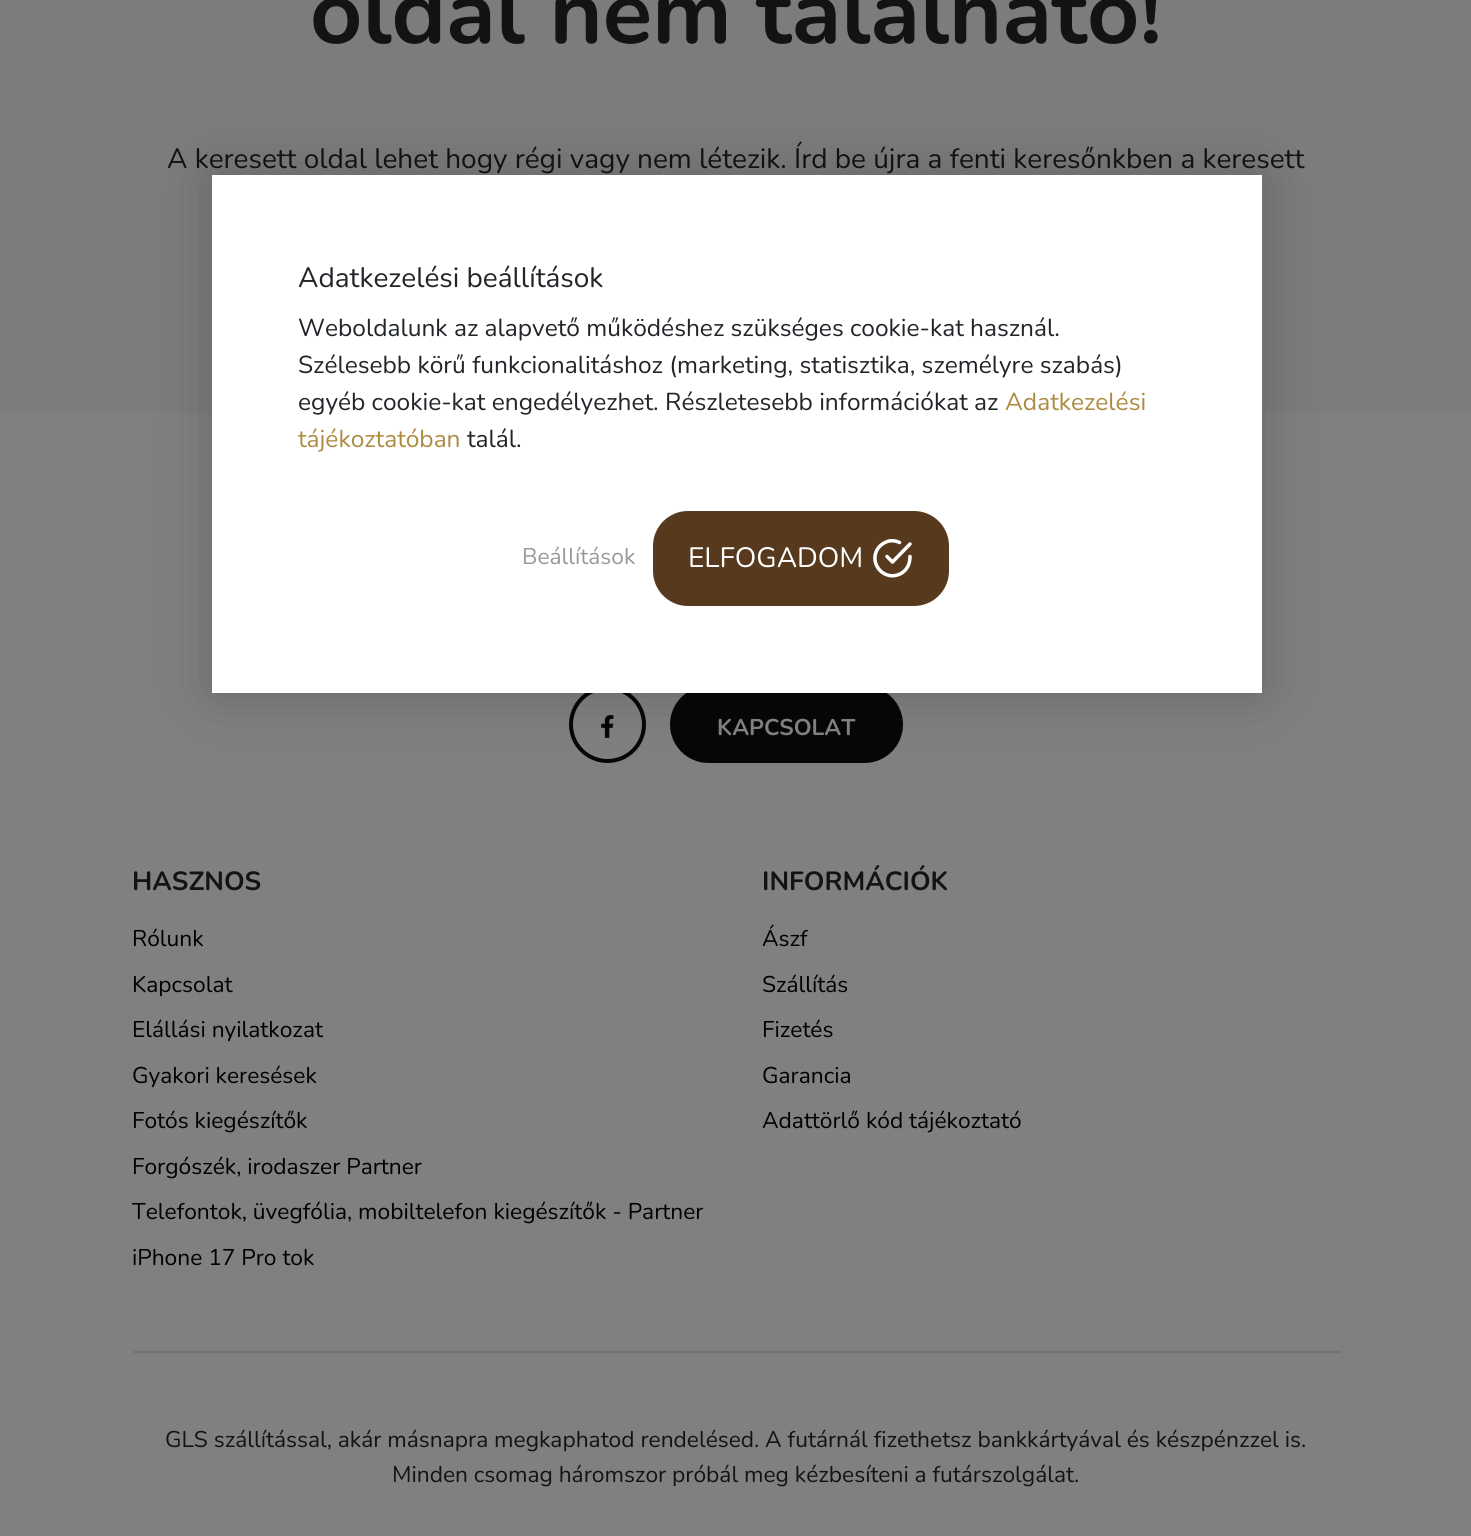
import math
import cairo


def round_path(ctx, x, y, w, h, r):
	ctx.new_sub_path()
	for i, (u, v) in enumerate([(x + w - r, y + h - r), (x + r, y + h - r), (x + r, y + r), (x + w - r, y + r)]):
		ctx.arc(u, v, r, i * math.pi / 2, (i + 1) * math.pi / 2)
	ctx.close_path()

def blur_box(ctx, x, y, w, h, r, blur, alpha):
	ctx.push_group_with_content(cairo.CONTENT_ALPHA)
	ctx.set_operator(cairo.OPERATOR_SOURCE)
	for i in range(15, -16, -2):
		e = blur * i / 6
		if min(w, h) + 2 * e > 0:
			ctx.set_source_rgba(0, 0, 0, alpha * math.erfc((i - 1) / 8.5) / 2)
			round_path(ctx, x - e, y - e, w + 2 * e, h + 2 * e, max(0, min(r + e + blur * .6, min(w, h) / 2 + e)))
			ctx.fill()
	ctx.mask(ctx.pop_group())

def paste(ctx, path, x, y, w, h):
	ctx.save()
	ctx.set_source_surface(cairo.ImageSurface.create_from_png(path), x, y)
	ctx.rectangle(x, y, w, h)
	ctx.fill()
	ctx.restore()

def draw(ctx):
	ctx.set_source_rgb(0.486, 0.486, 0.486)
	ctx.paint()
	ctx.select_font_face('Nunito', cairo.FONT_SLANT_NORMAL, cairo.FONT_WEIGHT_BOLD)
	ctx.set_font_size(91)
	ctx.set_source_rgb(0.067, 0.075, 0.082)
	ctx.move_to(310, 43)
	ctx.show_text('oldal nem található!')
	ctx.select_font_face('Nunito')
	ctx.set_font_size(28)
	ctx.move_to(167, 168)
	ctx.show_text('A keresett oldal lehet hogy régi vagy nem létezik. Írd be újra a fenti keresőnkben a keresett')
	ctx.set_source_rgb(0.502, 0.502, 0.502)
	ctx.rectangle(0, 413, 1471, 1123)
	ctx.fill()
	ctx.arc(607.5, 724.5, 36.5, 0, 2 * math.pi)
	ctx.set_source_rgb(0.024, 0.024, 0.024)
	ctx.set_line_width(4)
	ctx.stroke()
	paste(ctx, 'media/1.png', 601, 715, 13, 23)
	ctx.set_source_rgb(0.027, 0.027, 0.027)
	round_path(ctx, 672, 688, 229, 73, 36.5)
	ctx.fill_preserve()
	ctx.stroke()
	ctx.set_source_rgb(0, 0, 0)
	blur_box(ctx, 212, 175, 1050, 518, 0, 28, 0.2)
	ctx.set_source_rgb(1, 1, 1)
	ctx.rectangle(212, 175, 1050, 518)
	ctx.fill()
	ctx.set_source_rgb(0.129, 0.145, 0.161)
	ctx.move_to(298, 287)
	ctx.show_text('Adatkezelési beállítások')
	ctx.set_font_size(24.5)
	for x, y, s in [
		(298, 336, 'Weboldalunk az alapvető működéshez szükséges cookie-kat használ.'),
		(298, 373, 'Szélesebb körű funkcionalitáshoz (marketing, statisztika, személyre szabás)'),
		(298, 410, 'egyéb cookie-kat engedélyezhet. Részletesebb információkat az'),
	]:
		ctx.move_to(x, y)
		ctx.show_text(s)
	ctx.set_source_rgb(0.678, 0.545, 0.255)
	ctx.move_to(1005, 410)
	ctx.show_text('Adatkezelési')
	ctx.move_to(298, 447)
	ctx.show_text('tájékoztatóban')
	ctx.set_source_rgb(0.129, 0.145, 0.161)
	ctx.move_to(467, 447)
	ctx.show_text('talál.')
	ctx.set_font_size(22.75)
	ctx.set_source_rgb(0.6, 0.6, 0.6)
	ctx.move_to(522, 564)
	ctx.show_text('Beállítások')
	ctx.set_source_rgb(0.341, 0.224, 0.114)
	round_path(ctx, 653, 511, 296, 95, 35)
	ctx.fill()
	ctx.set_font_size(28)
	ctx.set_source_rgb(1, 1, 1)
	ctx.move_to(688, 567)
	ctx.show_text('ELFOGADOM')
	ctx.new_path()
	ctx.move_to(910, 556.5)
	ctx.curve_to(910, 564, 907, 570.5, 900, 574)
	ctx.curve_to(884.5, 581.5, 868.5, 564, 877.5, 549)
	ctx.curve_to(879.5, 546, 882.5, 543.5, 886, 542)
	ctx.curve_to(890.5, 540, 895.5, 540.5, 899.5, 542.5)
	ctx.move_to(910, 544)
	ctx.line_to(892.5, 562)
	ctx.line_to(887, 556.5)
	ctx.set_line_width(3.5)
	ctx.set_line_cap(cairo.LINE_CAP_ROUND)
	ctx.set_line_join(cairo.LINE_JOIN_ROUND)
	ctx.stroke()
	ctx.select_font_face('Nunito', cairo.FONT_SLANT_NORMAL, cairo.FONT_WEIGHT_BOLD)
	ctx.set_font_size(22.75)
	ctx.set_source_rgb(0.502, 0.502, 0.502)
	ctx.move_to(717, 735)
	ctx.show_text('KAPCSOLAT')
	ctx.set_font_size(26.25)
	ctx.set_source_rgb(0.067, 0.075, 0.082)
	ctx.move_to(132, 890)
	ctx.show_text('HASZNOS')
	ctx.select_font_face('Nunito')
	ctx.set_font_size(22.75)
	ctx.set_source_rgb(0, 0, 0)
	for x, y, s in [
		(132, 946, 'Rólunk'),
		(132, 992, 'Kapcsolat'),
		(132, 1037, 'Elállási nyilatkozat'),
		(132, 1083, 'Gyakori keresések'),
		(132, 1128, 'Fotós kiegészítők'),
		(132, 1174, 'Forgószék, irodaszer Partner'),
		(132, 1219, 'Telefontok, üvegfólia, mobiltelefon kiegészítők - Partner'),
		(132, 1265, 'iPhone 17 Pro tok'),
	]:
		ctx.move_to(x, y)
		ctx.show_text(s)
	ctx.select_font_face('Nunito', cairo.FONT_SLANT_NORMAL, cairo.FONT_WEIGHT_BOLD)
	ctx.set_font_size(26.25)
	ctx.set_source_rgb(0.067, 0.075, 0.082)
	ctx.move_to(762, 890)
	ctx.show_text('INFORMÁCIÓK')
	ctx.select_font_face('Nunito')
	ctx.set_font_size(22.75)
	ctx.set_source_rgb(0, 0, 0)
	for x, y, s in [
		(762, 946, 'Ászf'),
		(762, 992, 'Szállítás'),
		(762, 1037, 'Fizetés'),
		(762, 1083, 'Garancia'),
		(762, 1128, 'Adattörlő kód tájékoztató'),
	]:
		ctx.move_to(x, y)
		ctx.show_text(s)
	ctx.set_source_rgb(0.451, 0.451, 0.451)
	ctx.rectangle(133, 1351, 1208, 2)
	ctx.fill()
	ctx.set_source_rgb(0.067, 0.075, 0.082)
	ctx.move_to(165, 1447)
	ctx.show_text('GLS szállítással, akár másnapra megkaphatod rendelésed. A futárnál fizethetsz bankkártyával és készpénzzel is.')
	ctx.move_to(392, 1482)
	ctx.show_text('Minden csomag háromszor próbál meg kézbesíteni a futárszolgálat.')


surface = cairo.ImageSurface(cairo.FORMAT_RGB24, 1471, 1536)
ctx = cairo.Context(surface)
options = cairo.FontOptions()
options.set_hint_metrics(cairo.HINT_METRICS_OFF)
options.set_hint_style(cairo.HINT_STYLE_NONE)
ctx.set_font_options(options)
ctx.set_miter_limit(4)
draw(ctx)
surface.write_to_png('image.png')
